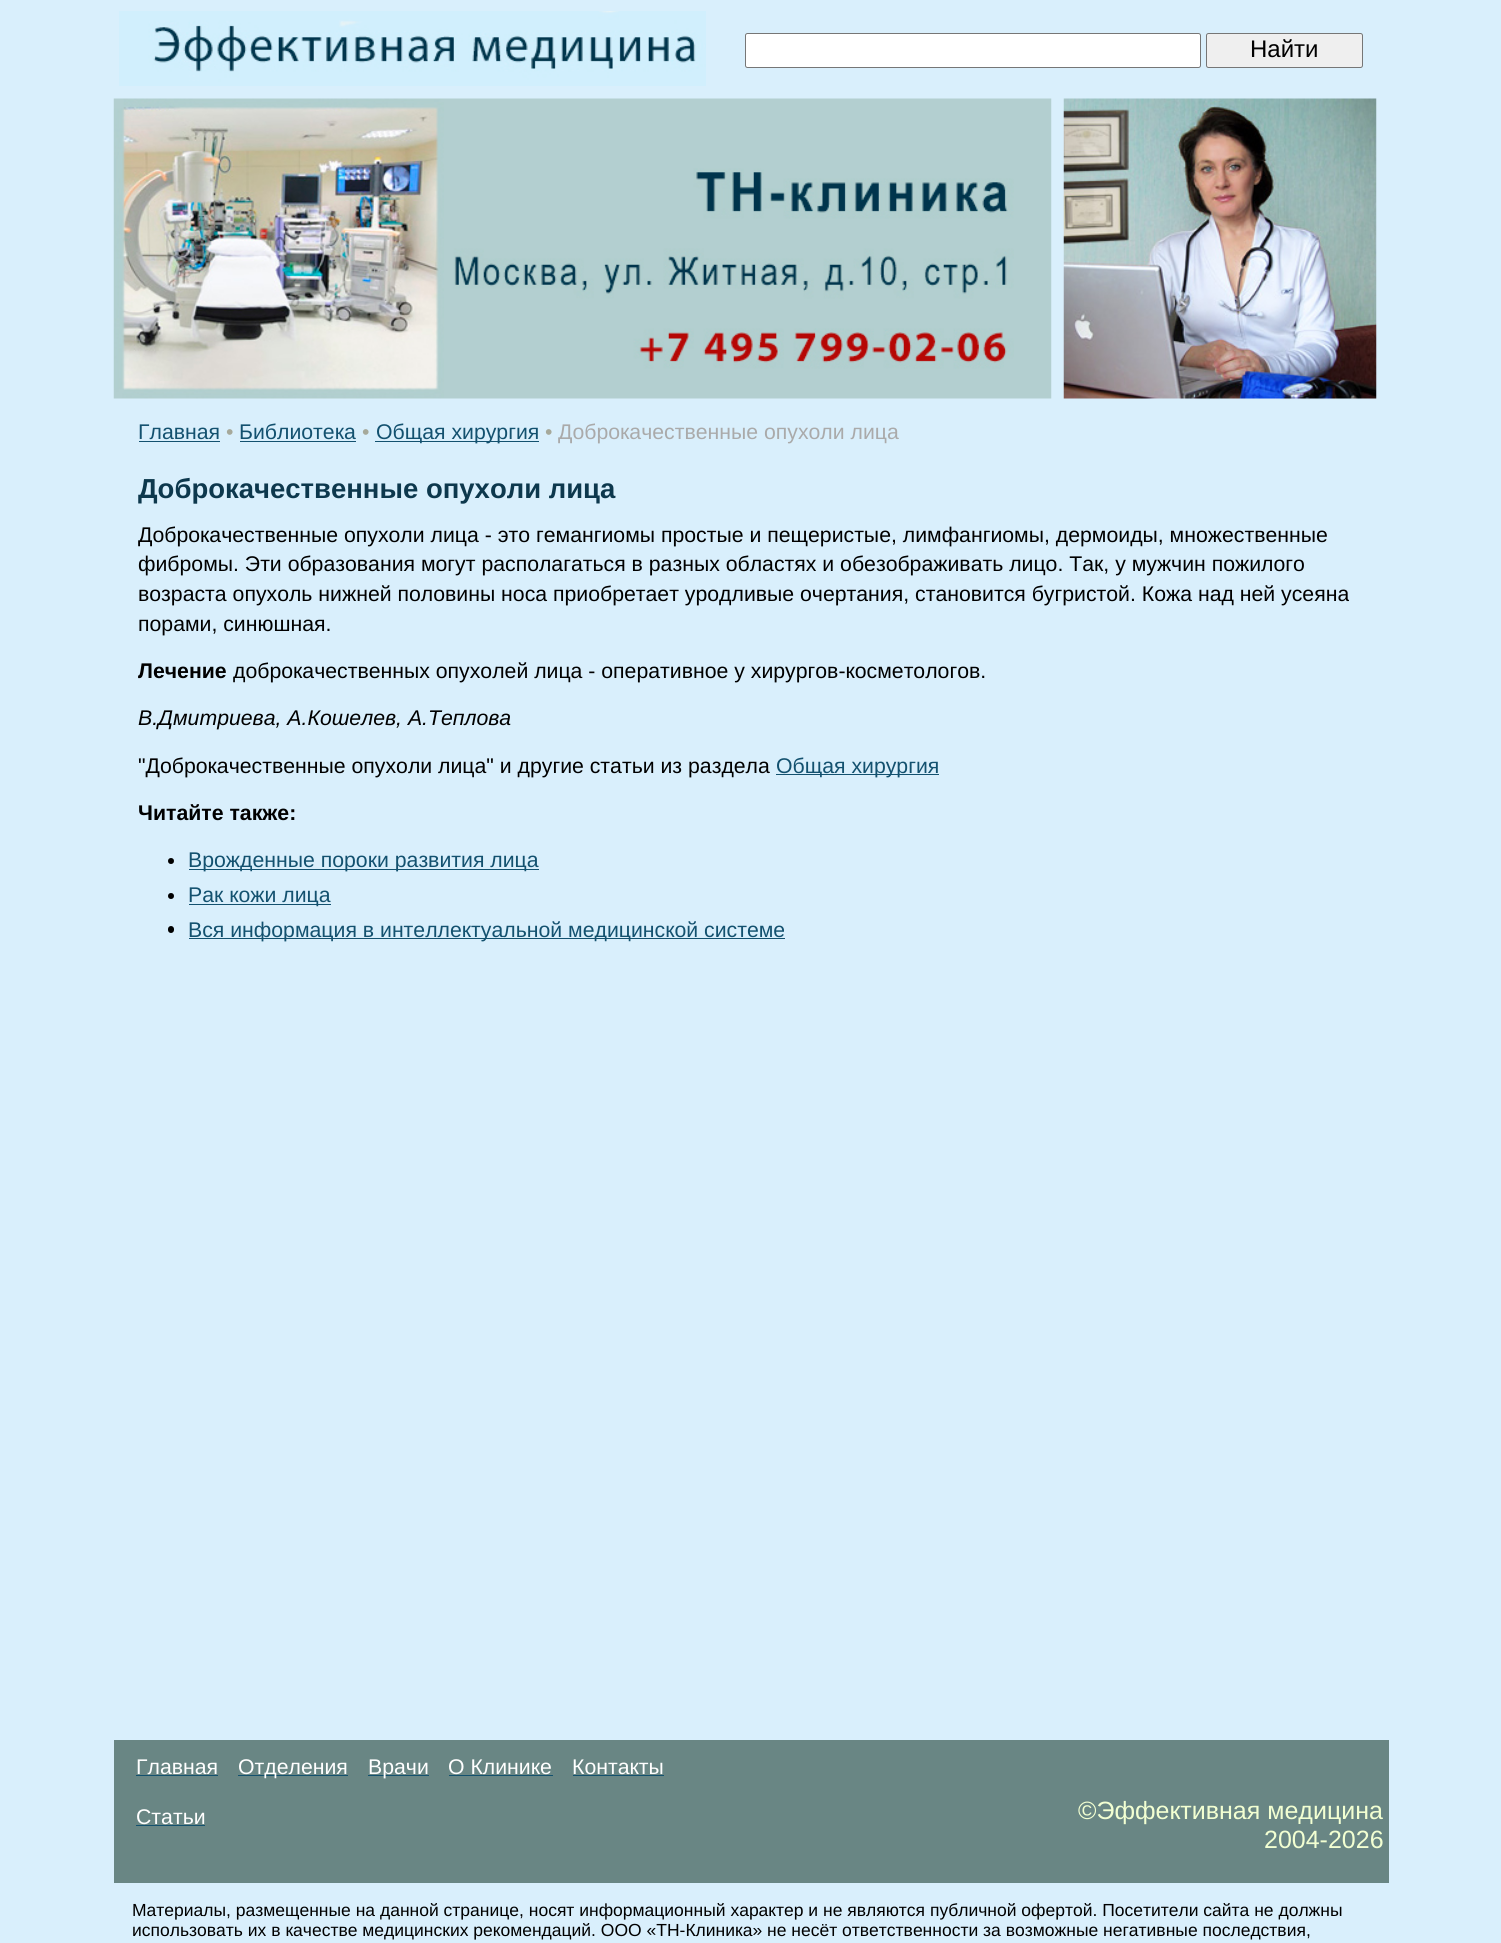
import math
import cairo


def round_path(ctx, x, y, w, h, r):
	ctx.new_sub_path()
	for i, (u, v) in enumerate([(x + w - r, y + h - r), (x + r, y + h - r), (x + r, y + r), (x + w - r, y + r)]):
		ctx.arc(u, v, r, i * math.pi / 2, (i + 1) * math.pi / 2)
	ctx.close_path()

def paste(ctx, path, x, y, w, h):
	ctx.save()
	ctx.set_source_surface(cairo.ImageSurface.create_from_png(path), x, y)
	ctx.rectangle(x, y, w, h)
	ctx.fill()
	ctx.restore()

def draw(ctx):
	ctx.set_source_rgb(0.851, 0.937, 0.988)
	ctx.paint()
	paste(ctx, 'media/1.png', 119, 11, 587, 75)
	ctx.set_source_rgb(1, 1, 1)
	round_path(ctx, 745.5, 33.5, 455, 34, 2)
	ctx.fill_preserve()
	ctx.set_source_rgb(0.463, 0.463, 0.463)
	ctx.set_line_width(1)
	ctx.stroke()
	ctx.set_source_rgb(0.937, 0.937, 0.937)
	round_path(ctx, 1206.5, 33.5, 156, 34, 2)
	ctx.fill_preserve()
	ctx.set_source_rgb(0.463, 0.463, 0.463)
	ctx.stroke()
	ctx.select_font_face('Liberation Sans')
	ctx.set_font_size(24)
	ctx.set_source_rgb(0, 0, 0)
	ctx.move_to(1250, 57)
	ctx.show_text('Найти')
	paste(ctx, 'media/2.png', 113, 98, 939, 301)
	paste(ctx, 'media/3.png', 1063, 98, 314, 301)
	ctx.set_font_size(21.25)
	ctx.set_source_rgb(0.075, 0.318, 0.435)
	ctx.move_to(138, 439)
	ctx.show_text('Главная')
	ctx.rectangle(139, 441, 81, 1)
	ctx.fill()
	ctx.set_source_rgb(0.651, 0.663, 0.608)
	ctx.move_to(226, 439)
	ctx.show_text('•')
	ctx.set_source_rgb(0.075, 0.318, 0.435)
	ctx.move_to(239, 439)
	ctx.show_text('Библиотека')
	ctx.rectangle(240, 441, 116, 1)
	ctx.fill()
	ctx.set_source_rgb(0.651, 0.663, 0.608)
	ctx.move_to(362, 439)
	ctx.show_text('•')
	ctx.set_source_rgb(0.075, 0.318, 0.435)
	ctx.rectangle(375, 441, 164, 1)
	ctx.fill()
	ctx.move_to(376, 439)
	ctx.show_text('Общая хирургия')
	ctx.set_source_rgb(0.651, 0.663, 0.608)
	ctx.move_to(545, 439)
	ctx.show_text('•')
	ctx.set_source_rgb(0.667, 0.667, 0.667)
	ctx.move_to(558, 439)
	ctx.show_text('Доброкачественные опухоли лица')
	ctx.select_font_face('Liberation Sans', cairo.FONT_SLANT_NORMAL, cairo.FONT_WEIGHT_BOLD)
	ctx.set_font_size(27.5)
	ctx.set_source_rgb(0.051, 0.22, 0.302)
	ctx.move_to(138, 498)
	ctx.show_text('Доброкачественные опухоли лица')
	ctx.select_font_face('Liberation Sans')
	ctx.set_font_size(21.25)
	ctx.set_source_rgb(0, 0, 0)
	for x, y, s in [
		(138, 542, 'Доброкачественные опухоли лица - это гемангиомы простые и пещеристые, лимфангиомы, дермоиды, множественные'),
		(138, 571, 'фибромы. Эти образования могут располагаться в разных областях и обезображивать лицо. Так, у мужчин пожилого'),
		(138, 601, 'возраста опухоль нижней половины носа приобретает уродливые очертания, становится бугристой. Кожа над ней усеяна'),
		(138, 631, 'порами, синюшная.'),
	]:
		ctx.move_to(x, y)
		ctx.show_text(s)
	ctx.select_font_face('Liberation Sans', cairo.FONT_SLANT_NORMAL, cairo.FONT_WEIGHT_BOLD)
	ctx.move_to(138, 678)
	ctx.show_text('Лечение')
	ctx.select_font_face('Liberation Sans')
	ctx.move_to(233, 678)
	ctx.show_text('доброкачественных опухолей лица - оперативное у хирургов-косметологов.')
	ctx.select_font_face('Liberation Sans', cairo.FONT_SLANT_ITALIC)
	ctx.move_to(138, 725)
	ctx.show_text('В.Дмитриева, А.Кошелев, А.Теплова')
	ctx.select_font_face('Liberation Sans')
	ctx.move_to(138, 773)
	ctx.show_text('"Доброкачественные опухоли лица" и другие статьи из раздела')
	ctx.set_source_rgb(0.075, 0.318, 0.435)
	ctx.rectangle(776, 774, 163, 1)
	ctx.fill()
	ctx.move_to(776, 773)
	ctx.show_text('Общая хирургия')
	ctx.select_font_face('Liberation Sans', cairo.FONT_SLANT_NORMAL, cairo.FONT_WEIGHT_BOLD)
	ctx.set_source_rgb(0, 0, 0)
	ctx.move_to(138, 820)
	ctx.show_text('Читайте также:')
	ctx.new_path()
	ctx.arc(171, 861, 3, 0, 2 * math.pi)
	ctx.fill()
	ctx.set_source_rgb(0.075, 0.318, 0.435)
	ctx.rectangle(189, 869, 350, 1)
	ctx.fill()
	ctx.select_font_face('Liberation Sans')
	ctx.move_to(188, 867)
	ctx.show_text('Врожденные пороки развития лица')
	ctx.set_source_rgb(0, 0, 0)
	ctx.new_path()
	ctx.arc(171, 896, 3, 0, 2 * math.pi)
	ctx.fill()
	ctx.set_source_rgb(0.075, 0.318, 0.435)
	ctx.rectangle(189, 904, 142, 1)
	ctx.fill()
	ctx.move_to(188, 902)
	ctx.show_text('Рак кожи лица')
	ctx.set_source_rgb(0, 0, 0)
	round_path(ctx, 168, 926, 6, 7, 3)
	ctx.fill()
	ctx.set_source_rgb(0.075, 0.318, 0.435)
	ctx.rectangle(189, 938, 596, 1)
	ctx.fill()
	ctx.move_to(188, 937)
	ctx.show_text('Вся информация в интеллектуальной медицинской системе')
	ctx.set_source_rgb(0.412, 0.525, 0.518)
	ctx.rectangle(114, 1740, 1275, 143)
	ctx.fill()
	ctx.set_source_rgb(1, 1, 1)
	ctx.move_to(136, 1774)
	ctx.show_text('Главная')
	ctx.set_source_rgb(0.075, 0.318, 0.435)
	ctx.rectangle(136, 1775, 82, 1)
	ctx.fill()
	ctx.rectangle(238, 1775, 110, 1)
	ctx.fill()
	ctx.set_source_rgb(1, 1, 1)
	ctx.move_to(238, 1774)
	ctx.show_text('Отделения')
	ctx.set_source_rgb(0.075, 0.318, 0.435)
	ctx.rectangle(368, 1775, 61, 1)
	ctx.fill()
	ctx.set_source_rgb(1, 1, 1)
	ctx.move_to(368, 1774)
	ctx.show_text('Врачи')
	ctx.move_to(448, 1774)
	ctx.show_text('О Клинике')
	ctx.set_source_rgb(0.075, 0.318, 0.435)
	ctx.rectangle(449, 1775, 104, 1)
	ctx.fill()
	ctx.set_source_rgb(1, 1, 1)
	ctx.move_to(572, 1774)
	ctx.show_text('Контакты')
	ctx.set_source_rgb(0.075, 0.318, 0.435)
	ctx.rectangle(573, 1775, 91, 1)
	ctx.fill()
	ctx.set_source_rgb(1, 1, 1)
	ctx.move_to(136, 1824)
	ctx.show_text('Статьи')
	ctx.set_source_rgb(0.075, 0.318, 0.435)
	ctx.rectangle(136, 1825, 69, 1)
	ctx.fill()
	ctx.set_font_size(25)
	ctx.set_source_rgb(0.949, 1, 0.824)
	ctx.move_to(1078, 1819)
	ctx.show_text('©Эффективная медицина')
	ctx.move_to(1264, 1848)
	ctx.show_text('2004-2026')
	ctx.set_font_size(17.5)
	ctx.set_source_rgb(0, 0, 0)
	ctx.move_to(132, 1916)
	ctx.show_text('Материалы, размещенные на данной странице, носят информационный характер и не являются публичной офертой. Посетители сайта не должны')
	ctx.move_to(132, 1936)
	ctx.show_text('использовать их в качестве медицинских рекомендаций. ООО «ТН-Клиника» не несёт ответственности за возможные негативные последствия,')


surface = cairo.ImageSurface(cairo.FORMAT_RGB24, 1501, 1943)
ctx = cairo.Context(surface)
options = cairo.FontOptions()
options.set_hint_metrics(cairo.HINT_METRICS_OFF)
options.set_hint_style(cairo.HINT_STYLE_NONE)
ctx.set_font_options(options)
ctx.set_miter_limit(4)
draw(ctx)
surface.write_to_png('image.png')
